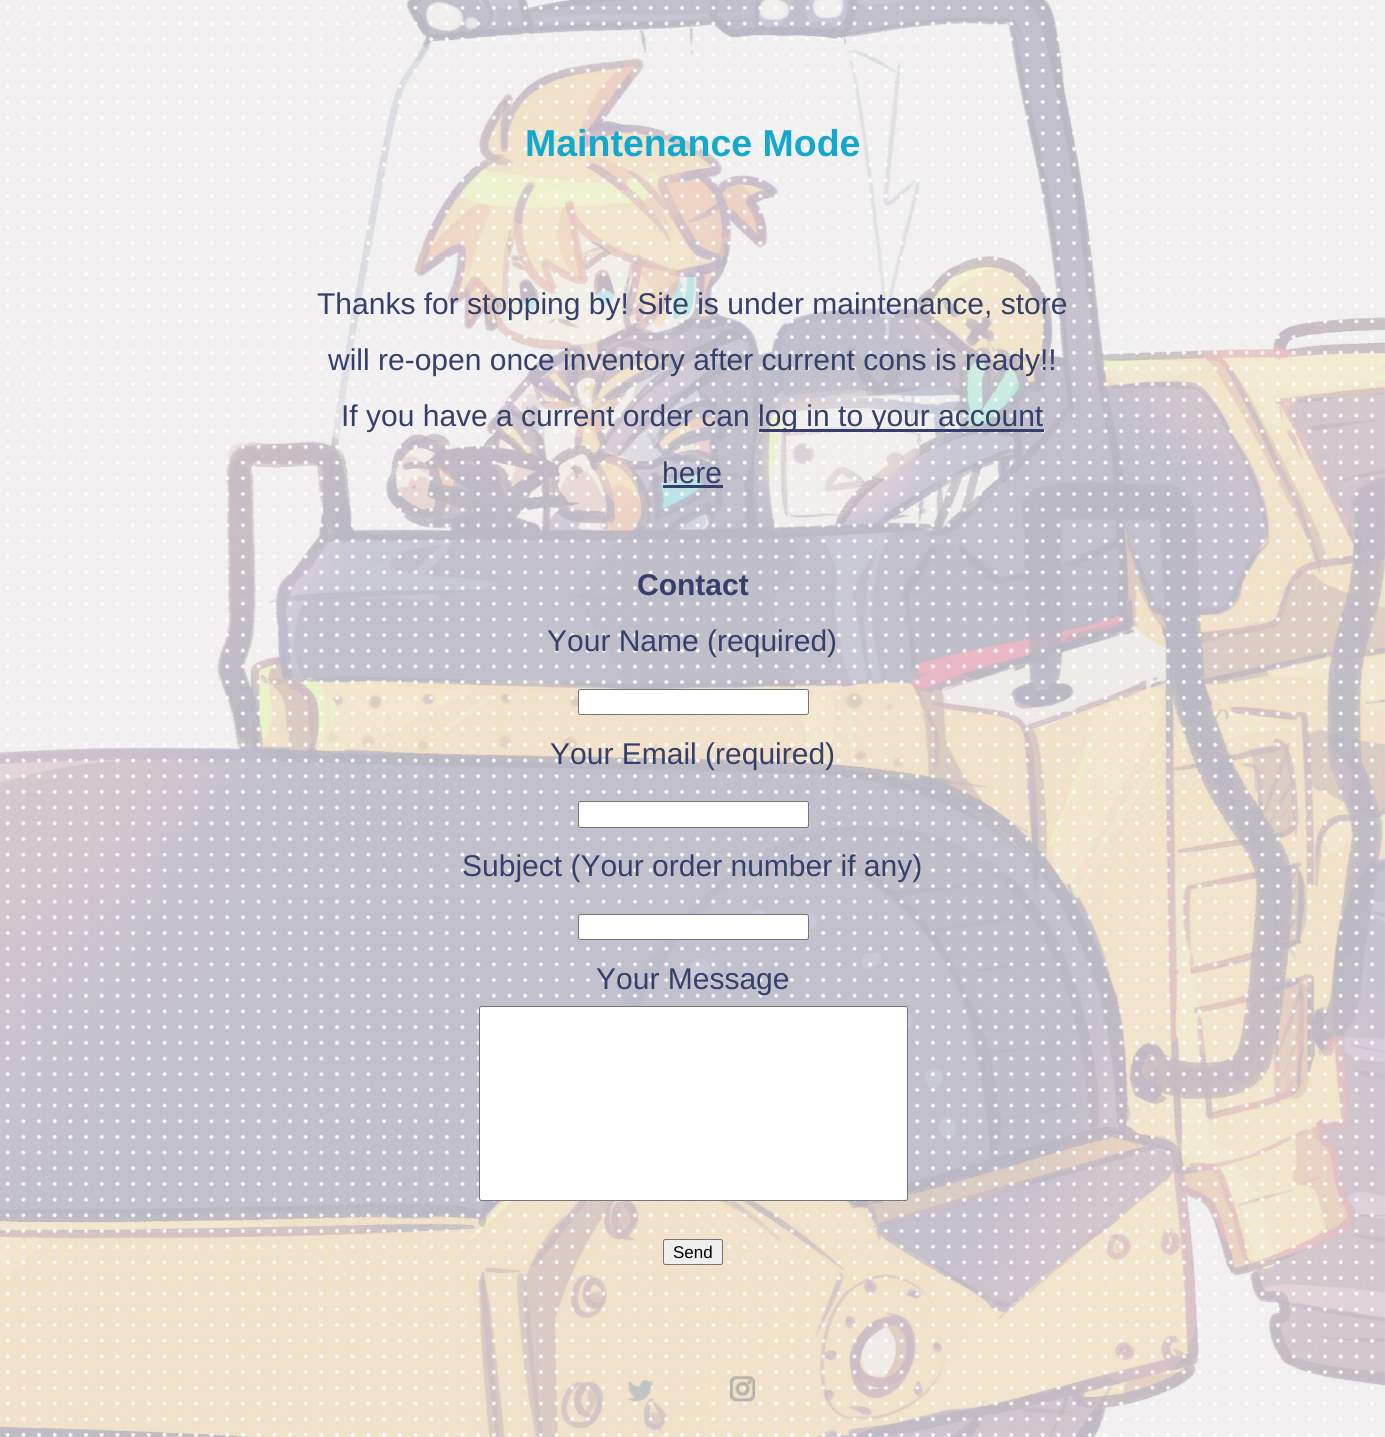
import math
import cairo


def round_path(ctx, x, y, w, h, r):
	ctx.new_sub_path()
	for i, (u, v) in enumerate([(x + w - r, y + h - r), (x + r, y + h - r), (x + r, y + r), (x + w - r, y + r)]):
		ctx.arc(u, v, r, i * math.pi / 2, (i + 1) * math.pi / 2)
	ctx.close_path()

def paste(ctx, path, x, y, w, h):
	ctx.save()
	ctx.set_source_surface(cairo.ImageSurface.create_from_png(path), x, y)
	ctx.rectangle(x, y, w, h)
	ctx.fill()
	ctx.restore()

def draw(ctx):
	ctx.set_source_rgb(1, 1, 1)
	ctx.paint()
	paste(ctx, 'media/1.png', 0, 0, 1385, 1437)
	ctx.select_font_face('Liberation Sans', cairo.FONT_SLANT_NORMAL, cairo.FONT_WEIGHT_BOLD)
	ctx.set_font_size(37.5)
	ctx.set_source_rgb(0.078, 0.663, 0.808)
	ctx.move_to(525, 156)
	ctx.show_text('Maintenance Mode')
	ctx.select_font_face('Liberation Sans')
	ctx.set_font_size(30)
	ctx.set_source_rgb(0.204, 0.251, 0.42)
	for x, y, s in [
		(317, 314, 'Thanks for stopping by! Site is under maintenance, store'),
		(328, 370, 'will re-open once inventory after current cons is ready!!'),
		(341, 426, 'If you have a current order can'),
	]:
		ctx.move_to(x, y)
		ctx.show_text(s)
	ctx.rectangle(759, 429, 285, 3)
	ctx.fill()
	ctx.move_to(758, 426)
	ctx.show_text('log in to your account')
	ctx.move_to(662, 483)
	ctx.show_text('here')
	ctx.rectangle(663, 485, 60, 3)
	ctx.fill()
	ctx.select_font_face('Liberation Sans', cairo.FONT_SLANT_NORMAL, cairo.FONT_WEIGHT_BOLD)
	ctx.move_to(637, 595)
	ctx.show_text('Contact')
	ctx.select_font_face('Liberation Sans')
	ctx.move_to(547, 651)
	ctx.show_text('Your Name (required)')
	ctx.set_source_rgb(1, 1, 1)
	round_path(ctx, 578.5, 689.5, 230, 25, 2)
	ctx.fill_preserve()
	ctx.set_source_rgb(0.463, 0.463, 0.463)
	ctx.set_line_width(1)
	ctx.stroke()
	ctx.set_source_rgb(0.204, 0.251, 0.42)
	ctx.move_to(550, 764)
	ctx.show_text('Your Email (required)')
	ctx.set_source_rgb(1, 1, 1)
	round_path(ctx, 578.5, 801.5, 230, 26, 2)
	ctx.fill_preserve()
	ctx.set_source_rgb(0.463, 0.463, 0.463)
	ctx.stroke()
	ctx.set_source_rgb(0.204, 0.251, 0.42)
	ctx.move_to(462, 876)
	ctx.show_text('Subject (Your order number if any)')
	ctx.set_source_rgb(1, 1, 1)
	round_path(ctx, 578.5, 914.5, 230, 25, 2)
	ctx.fill_preserve()
	ctx.set_source_rgb(0.463, 0.463, 0.463)
	ctx.stroke()
	ctx.set_source_rgb(0.204, 0.251, 0.42)
	ctx.move_to(596, 989)
	ctx.show_text('Your Message')
	ctx.set_source_rgb(1, 1, 1)
	round_path(ctx, 479.5, 1006.5, 428, 194, 2)
	ctx.fill_preserve()
	ctx.set_source_rgb(0.463, 0.463, 0.463)
	ctx.stroke()
	ctx.set_source_rgb(0.937, 0.937, 0.937)
	round_path(ctx, 663.5, 1239.5, 59, 25, 2)
	ctx.fill_preserve()
	ctx.set_source_rgb(0.463, 0.463, 0.463)
	ctx.stroke()
	ctx.set_font_size(17)
	ctx.set_source_rgb(0, 0, 0)
	ctx.move_to(673, 1258)
	ctx.show_text('Send')
	paste(ctx, 'media/2.png', 627, 1380, 27, 22)
	paste(ctx, 'media/3.png', 730, 1376, 25, 26)


surface = cairo.ImageSurface(cairo.FORMAT_RGB24, 1385, 1437)
ctx = cairo.Context(surface)
options = cairo.FontOptions()
options.set_hint_metrics(cairo.HINT_METRICS_OFF)
options.set_hint_style(cairo.HINT_STYLE_NONE)
ctx.set_font_options(options)
ctx.set_miter_limit(4)
draw(ctx)
surface.write_to_png('image.png')
